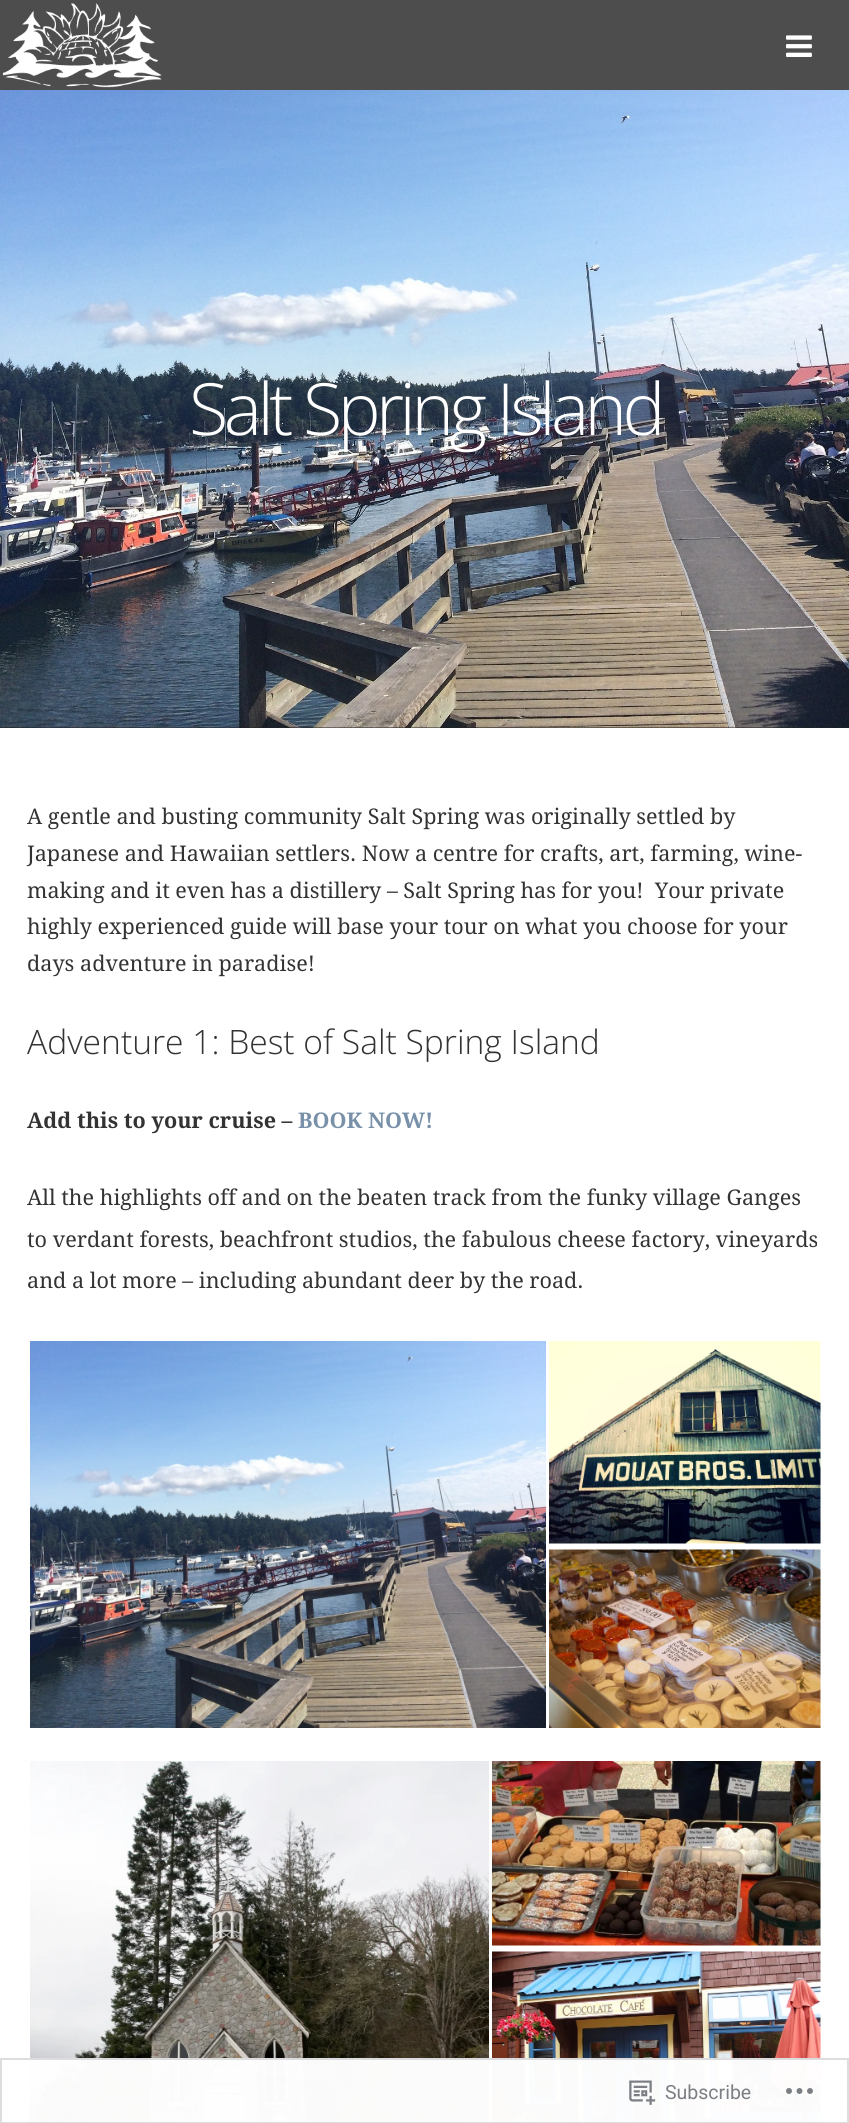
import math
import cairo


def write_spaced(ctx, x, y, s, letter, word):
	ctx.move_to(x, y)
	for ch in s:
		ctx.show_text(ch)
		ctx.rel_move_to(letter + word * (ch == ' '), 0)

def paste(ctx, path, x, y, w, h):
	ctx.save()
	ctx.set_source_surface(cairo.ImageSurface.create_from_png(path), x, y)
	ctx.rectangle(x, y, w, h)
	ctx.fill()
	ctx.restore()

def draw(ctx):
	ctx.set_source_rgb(1, 1, 1)
	ctx.paint()
	ctx.set_source_rgb(0.302, 0.302, 0.302)
	ctx.rectangle(0, 0, 849, 90)
	ctx.fill()
	paste(ctx, 'media/1.png', 2, 3, 160, 85)
	paste(ctx, 'media/2.png', 786, 35, 26, 22)
	ctx.set_source_rgb(0.133, 0.133, 0.133)
	ctx.rectangle(0, 727, 849, 1)
	ctx.fill()
	paste(ctx, 'media/3.png', 0, 90, 849, 638)
	ctx.select_font_face('Open Sans Light')
	ctx.set_font_size(72)
	ctx.set_source_rgb(1, 1, 1)
	write_spaced(ctx, 189, 435, 'Salt Spring Island', -4.5, 0)
	ctx.select_font_face('Droid Serif')
	ctx.set_font_size(21.6)
	ctx.set_source_rgb(0.2, 0.2, 0.2)
	for x, y, s in [
		(27, 824, 'A gentle and busting community Salt Spring was originally settled by'),
		(27, 861, 'Japanese and Hawaiian settlers. Now a centre for crafts, art, farming, wine-'),
		(27, 898, 'making and it even has a distillery – Salt Spring has for you!  Your private'),
		(27, 934, 'highly experienced guide will base your tour on what you choose for your'),
		(27, 971, 'days adventure in paradise!'),
	]:
		ctx.move_to(x, y)
		ctx.show_text(s)
	ctx.select_font_face('Open Sans Light')
	ctx.set_font_size(33.6)
	ctx.move_to(27, 1054)
	ctx.show_text('Adventure 1: Best of Salt Spring Island')
	ctx.select_font_face('Droid Serif', cairo.FONT_SLANT_NORMAL, cairo.FONT_WEIGHT_BOLD)
	ctx.set_font_size(21.6)
	ctx.move_to(27, 1128)
	ctx.show_text('Add this to your cruise –')
	ctx.set_source_rgb(0.471, 0.565, 0.659)
	ctx.move_to(298, 1128)
	ctx.show_text('BOOK NOW!')
	ctx.select_font_face('Droid Serif')
	ctx.set_source_rgb(0.2, 0.2, 0.2)
	for x, y, s in [
		(27, 1205, 'All the highlights off and on the beaten track from the funky village Ganges'),
		(27, 1247, 'to verdant forests, beachfront studios, the fabulous cheese factory, vineyards'),
		(27, 1288, 'and a lot more – including abundant deer by the road.'),
	]:
		ctx.move_to(x, y)
		ctx.show_text(s)
	paste(ctx, 'media/4.png', 30, 1341, 516, 387)
	paste(ctx, 'media/5.png', 549, 1341, 272, 203)
	paste(ctx, 'media/6.png', 549, 1549, 272, 179)
	paste(ctx, 'media/7.png', 30, 1761, 459, 362)
	paste(ctx, 'media/8.png', 492, 1761, 329, 185)
	paste(ctx, 'media/9.png', 492, 1951, 329, 172)
	ctx.set_source_rgba(1, 1, 1, 0.98)
	ctx.rectangle(30, 2058, 791, 65)
	ctx.fill()
	ctx.rectangle(1, 2059, 847, 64)
	ctx.set_source_rgba(0.863, 0.863, 0.871, 0.98)
	ctx.stroke()
	paste(ctx, 'media/10.png', 629, 2080, 27, 25)
	ctx.select_font_face('Roboto')
	ctx.set_font_size(19.5)
	ctx.set_source_rgb(0.482, 0.498, 0.518)
	ctx.move_to(665, 2099)
	ctx.show_text('Subscribe')
	paste(ctx, 'media/11.png', 786, 2088, 27, 6)


surface = cairo.ImageSurface(cairo.FORMAT_RGB24, 849, 2123)
ctx = cairo.Context(surface)
options = cairo.FontOptions()
options.set_hint_metrics(cairo.HINT_METRICS_OFF)
options.set_hint_style(cairo.HINT_STYLE_NONE)
ctx.set_font_options(options)
ctx.set_miter_limit(4)
draw(ctx)
surface.write_to_png('image.png')
